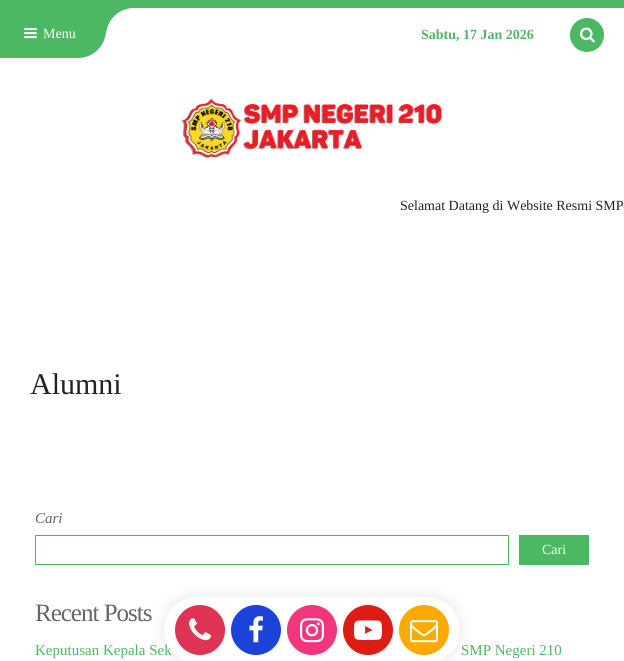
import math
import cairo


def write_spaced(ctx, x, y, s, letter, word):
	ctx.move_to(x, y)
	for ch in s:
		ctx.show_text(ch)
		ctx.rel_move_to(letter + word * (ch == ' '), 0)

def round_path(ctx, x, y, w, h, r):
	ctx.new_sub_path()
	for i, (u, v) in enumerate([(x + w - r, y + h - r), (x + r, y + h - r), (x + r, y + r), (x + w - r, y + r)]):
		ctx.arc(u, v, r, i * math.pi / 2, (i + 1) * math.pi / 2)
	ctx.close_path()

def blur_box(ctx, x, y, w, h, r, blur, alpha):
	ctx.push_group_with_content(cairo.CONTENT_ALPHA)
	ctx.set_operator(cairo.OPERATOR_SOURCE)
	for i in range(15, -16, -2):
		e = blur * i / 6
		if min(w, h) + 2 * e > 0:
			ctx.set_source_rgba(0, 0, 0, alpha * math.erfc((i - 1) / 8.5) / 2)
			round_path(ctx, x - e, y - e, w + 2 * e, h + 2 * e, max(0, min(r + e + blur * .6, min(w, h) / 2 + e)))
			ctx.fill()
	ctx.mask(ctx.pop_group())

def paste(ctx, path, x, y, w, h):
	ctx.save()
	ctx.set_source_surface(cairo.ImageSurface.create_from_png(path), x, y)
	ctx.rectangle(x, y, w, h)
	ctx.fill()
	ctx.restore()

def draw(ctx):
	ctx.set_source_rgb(1, 1, 1)
	ctx.paint()
	ctx.set_source_rgb(0.298, 0.722, 0.388)
	ctx.rectangle(0, 0, 624, 8)
	ctx.fill()
	ctx.new_path()
	ctx.move_to(0, 8)
	ctx.line_to(106, 8)
	ctx.line_to(106, 30)
	ctx.curve_to(106, 45.5, 93.5, 58, 78, 58)
	ctx.line_to(0, 58)
	ctx.close_path()
	ctx.fill()
	ctx.rectangle(106, 8, 28, 28)
	ctx.fill()
	paste(ctx, 'media/1.png', 24, 28, 13, 11)
	ctx.select_font_face('Liberation Serif')
	ctx.set_font_size(14)
	ctx.set_source_rgb(1, 1, 1)
	ctx.move_to(43, 38)
	ctx.show_text('Menu')
	ctx.new_path()
	ctx.move_to(134, 8)
	ctx.line_to(156, 8)
	ctx.line_to(156, 58)
	ctx.line_to(106, 58)
	ctx.line_to(106, 36)
	ctx.curve_to(106, 20.5, 118.5, 8, 134, 8)
	ctx.close_path()
	ctx.fill()
	ctx.set_source_rgb(0.298, 0.722, 0.388)
	ctx.arc(587, 35, 17, 0, 2 * math.pi)
	ctx.fill()
	paste(ctx, 'media/2.png', 580, 27, 15, 16)
	paste(ctx, 'media/3.png', 181, 98, 262, 60)
	ctx.set_source_rgb(0, 0, 0)
	blur_box(ctx, 164, 597, 296, 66, 33, 7.5, 0.1)
	ctx.set_font_size(15)
	ctx.set_source_rgb(0.298, 0.722, 0.388)
	ctx.move_to(35, 655)
	ctx.show_text('Keputusan Kepala Sek')
	ctx.set_source_rgb(1, 1, 1)
	round_path(ctx, 164, 597, 296, 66, 33)
	ctx.fill()
	ctx.set_source_rgb(0.867, 0.2, 0.333)
	ctx.arc(200, 630, 25, 0, 2 * math.pi)
	ctx.fill()
	paste(ctx, 'media/4.png', 189, 618, 22, 23)
	ctx.set_source_rgb(0.106, 0.259, 0.851)
	ctx.arc(256, 630, 25, 0, 2 * math.pi)
	ctx.fill()
	paste(ctx, 'media/5.png', 249, 616, 14, 27)
	ctx.set_source_rgb(0.949, 0.212, 0.49)
	ctx.arc(312, 630, 25, 0, 2 * math.pi)
	ctx.fill()
	paste(ctx, 'media/6.png', 300, 618, 24, 25)
	ctx.set_source_rgb(0.867, 0.114, 0.075)
	ctx.arc(368, 630, 25, 0, 2 * math.pi)
	ctx.fill()
	paste(ctx, 'media/7.png', 354, 620, 28, 21)
	ctx.set_source_rgb(1, 0.667, 0)
	ctx.arc(424, 630, 25, 0, 2 * math.pi)
	ctx.fill()
	paste(ctx, 'media/8.png', 410, 620, 28, 23)
	ctx.select_font_face('Liberation Serif', cairo.FONT_SLANT_NORMAL, cairo.FONT_WEIGHT_BOLD)
	ctx.set_font_size(14)
	ctx.set_source_rgb(0.298, 0.722, 0.388)
	ctx.move_to(421, 39)
	ctx.show_text('Sabtu, 17 Jan 2026')
	ctx.select_font_face('Liberation Serif')
	ctx.set_source_rgb(0.133, 0.133, 0.133)
	ctx.move_to(400, 210)
	ctx.show_text('Selamat Datang di Website Resmi SMP')
	ctx.set_font_size(30)
	ctx.move_to(30, 394)
	ctx.show_text('Alumni')
	ctx.select_font_face('Liberation Serif', cairo.FONT_SLANT_ITALIC)
	ctx.set_font_size(15)
	ctx.set_source_rgb(0.4, 0.4, 0.4)
	ctx.move_to(35, 523)
	ctx.show_text('Cari')
	ctx.rectangle(35.5, 535.5, 473, 29)
	ctx.set_source_rgb(0.298, 0.722, 0.388)
	ctx.set_line_width(1)
	ctx.stroke()
	ctx.rectangle(519, 535, 70, 30)
	ctx.fill()
	ctx.select_font_face('Liberation Serif')
	ctx.set_font_size(14)
	ctx.set_source_rgb(1, 1, 1)
	ctx.move_to(542, 554)
	ctx.show_text('Cari')
	ctx.set_font_size(25)
	ctx.set_source_rgb(0.4, 0.4, 0.4)
	write_spaced(ctx, 35, 621, 'Recent Posts', -1, 0)
	ctx.set_font_size(15)
	ctx.set_source_rgb(0.298, 0.722, 0.388)
	ctx.move_to(461, 655)
	ctx.show_text('SMP Negeri 210')


surface = cairo.ImageSurface(cairo.FORMAT_RGB24, 624, 661)
ctx = cairo.Context(surface)
options = cairo.FontOptions()
options.set_hint_metrics(cairo.HINT_METRICS_OFF)
options.set_hint_style(cairo.HINT_STYLE_NONE)
ctx.set_font_options(options)
ctx.set_miter_limit(4)
draw(ctx)
surface.write_to_png('image.png')
